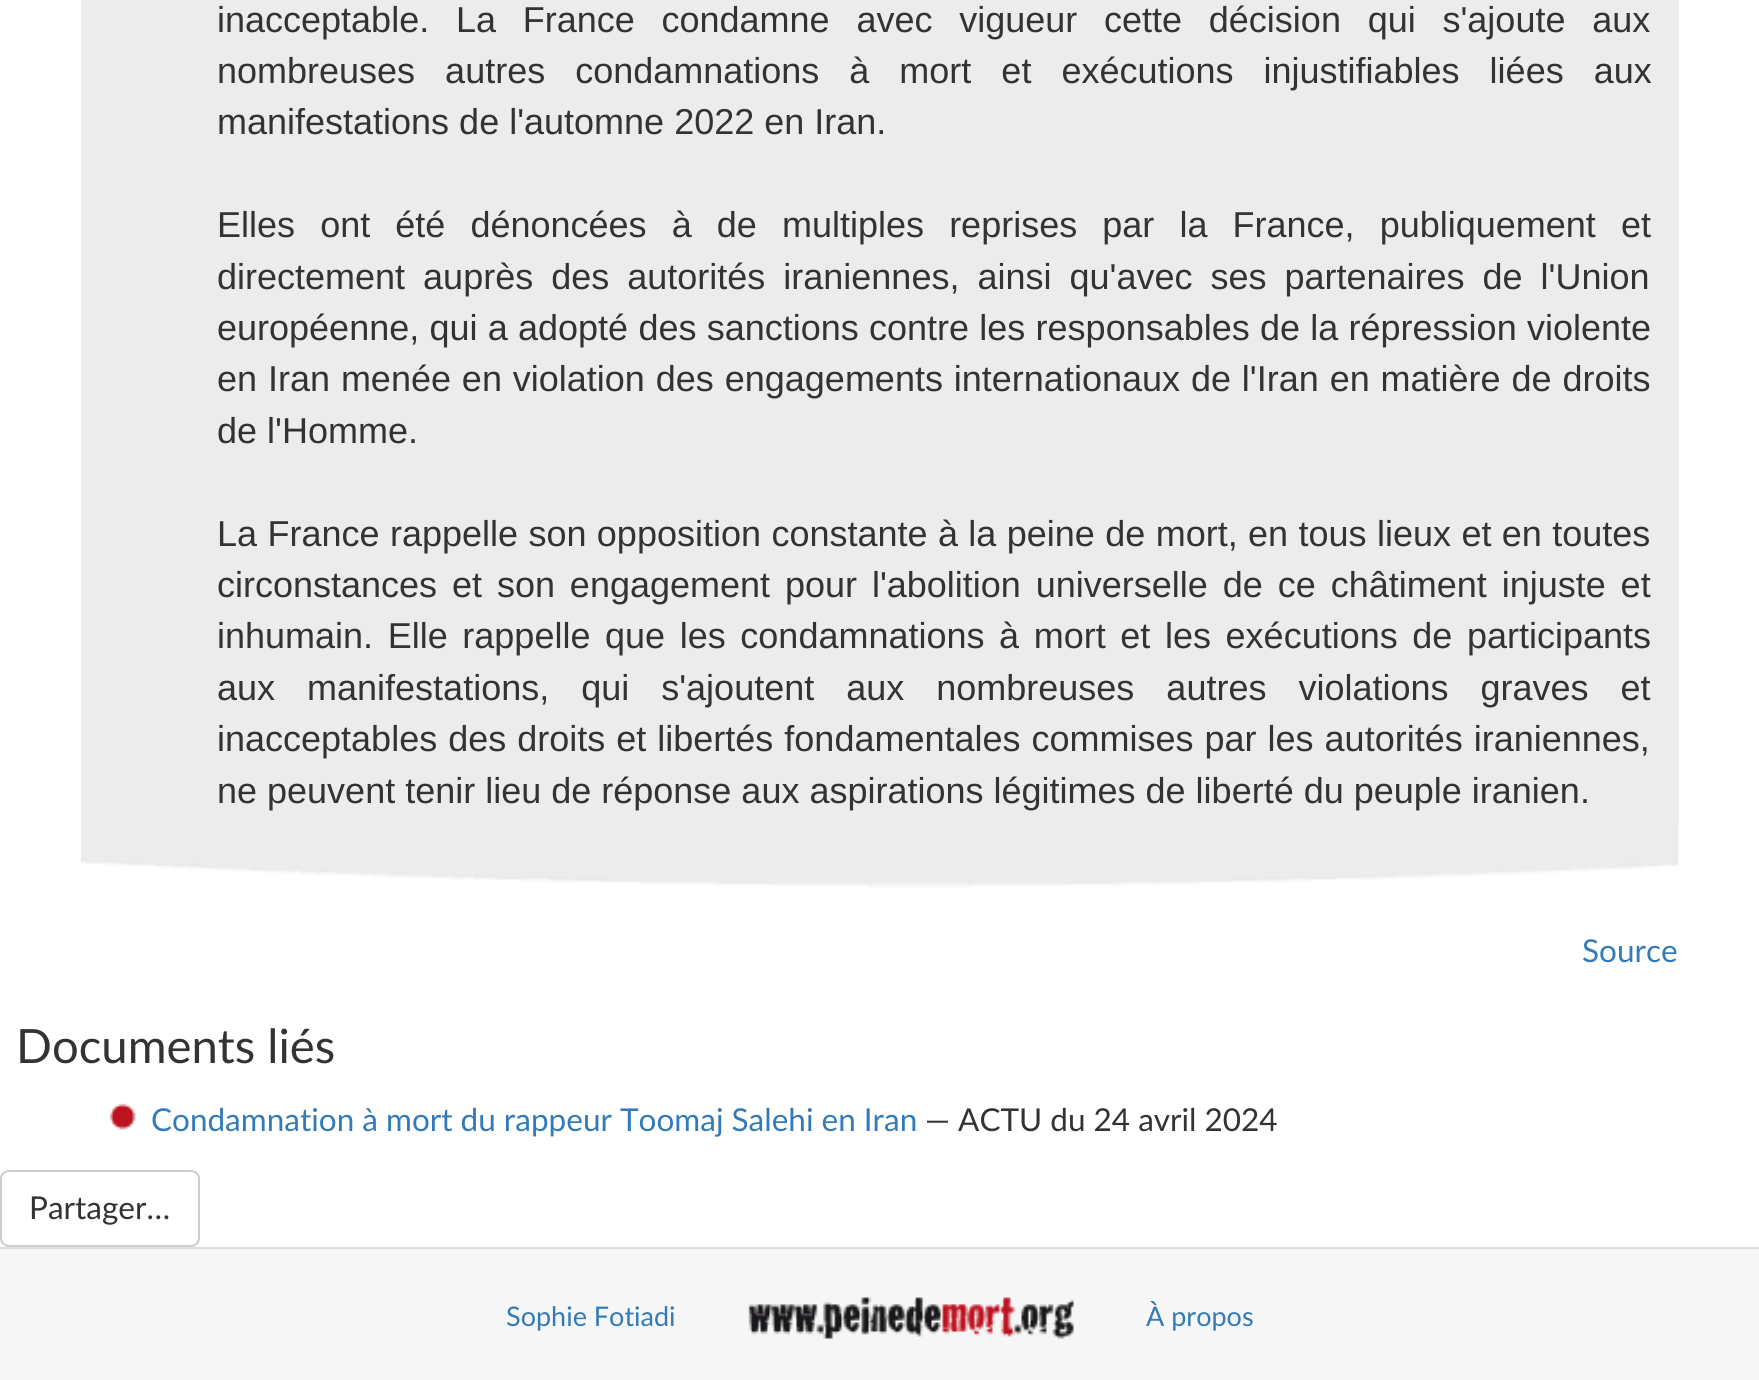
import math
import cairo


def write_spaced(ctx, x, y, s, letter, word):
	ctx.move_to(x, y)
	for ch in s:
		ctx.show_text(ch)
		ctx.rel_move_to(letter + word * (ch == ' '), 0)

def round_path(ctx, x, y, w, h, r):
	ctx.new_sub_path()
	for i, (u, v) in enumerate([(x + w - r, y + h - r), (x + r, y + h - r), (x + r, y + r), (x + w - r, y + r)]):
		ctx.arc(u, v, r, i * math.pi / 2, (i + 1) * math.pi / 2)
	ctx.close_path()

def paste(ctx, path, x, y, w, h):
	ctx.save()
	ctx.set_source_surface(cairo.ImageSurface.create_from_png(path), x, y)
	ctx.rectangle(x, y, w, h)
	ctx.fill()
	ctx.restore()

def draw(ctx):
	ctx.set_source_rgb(1, 1, 1)
	ctx.paint()
	ctx.set_source_rgb(0.925, 0.925, 0.929)
	ctx.rectangle(81, 0, 1598, 819)
	ctx.fill()
	ctx.select_font_face('Liberation Sans')
	ctx.set_font_size(36)
	ctx.set_source_rgb(0.2, 0.2, 0.2)
	write_spaced(ctx, 217, 32, 'inacceptable. La France condamne avec vigueur cette décision qui s\'ajoute aux', 0, 16.75)
	write_spaced(ctx, 217, 83, 'nombreuses autres condamnations à mort et exécutions injustifiables liées aux', 0, 20)
	ctx.move_to(217, 134)
	ctx.show_text('manifestations de l\'automne 2022 en Iran.')
	write_spaced(ctx, 217, 237, 'Elles ont été dénoncées à de multiples reprises par la France, publiquement et', 0, 15.1)
	write_spaced(ctx, 217, 289, 'directement auprès des autorités iraniennes, ainsi qu\'avec ses partenaires de l\'Union', 0, 8)
	write_spaced(ctx, 217, 340, 'européenne, qui a adopté des sanctions contre les responsables de la répression violente', 0, 0.25)
	write_spaced(ctx, 217, 391, 'en Iran menée en violation des engagements internationaux de l\'Iran en matière de droits', 0, 0.9)
	ctx.move_to(217, 443)
	ctx.show_text('de l\'Homme.')
	write_spaced(ctx, 217, 546, 'La France rappelle son opposition constante à la peine de mort, en tous lieux et en toutes', 0, 0.4)
	write_spaced(ctx, 217, 597, 'circonstances et son engagement pour l\'abolition universelle de ce châtiment injuste et', 0, 4.9)
	write_spaced(ctx, 217, 648, 'inhumain. Elle rappelle que les condamnations à mort et les exécutions de participants', 0, 4.6)
	write_spaced(ctx, 217, 700, 'aux manifestations, qui s\'ajoutent aux nombreuses autres violations graves et', 0, 22)
	write_spaced(ctx, 217, 751, 'inacceptables des droits et libertés fondamentales commises par les autorités iraniennes,', 0, 1)
	ctx.move_to(217, 803)
	ctx.show_text('ne peuvent tenir lieu de réponse aux aspirations légitimes de liberté du peuple iranien.')
	paste(ctx, 'media/1.png', 81, 819, 1598, 69)
	ctx.select_font_face('Lato')
	ctx.set_font_size(31.5)
	ctx.set_source_rgb(0.2, 0.478, 0.718)
	ctx.move_to(1582, 962)
	ctx.show_text('Source')
	ctx.set_font_size(47.25)
	ctx.set_source_rgb(0.2, 0.2, 0.2)
	ctx.move_to(16, 1063)
	ctx.show_text('Documents liés')
	paste(ctx, 'media/2.png', 109, 1103, 27, 27)
	ctx.set_font_size(31.5)
	ctx.set_source_rgb(0.2, 0.478, 0.718)
	ctx.move_to(151, 1131)
	ctx.show_text('Condamnation à mort du rappeur Toomaj Salehi en Iran')
	ctx.set_source_rgb(0.2, 0.2, 0.2)
	ctx.move_to(925, 1131)
	ctx.show_text('— ACTU du 24 avril 2024')
	round_path(ctx, 1, 1171, 198, 75, 8)
	ctx.set_source_rgb(0.8, 0.8, 0.8)
	ctx.stroke()
	ctx.set_source_rgb(0.2, 0.2, 0.2)
	ctx.move_to(29, 1219)
	ctx.show_text('Partager…')
	ctx.set_source_rgb(0.961, 0.961, 0.961)
	ctx.rectangle(0, 1249, 1759, 131)
	ctx.fill()
	ctx.set_source_rgb(0.867, 0.867, 0.867)
	ctx.rectangle(0, 1247, 1759, 2)
	ctx.fill()
	ctx.set_font_size(27)
	ctx.set_source_rgb(0.2, 0.478, 0.718)
	ctx.move_to(506, 1326)
	ctx.show_text('Sophie Fotiadi')
	paste(ctx, 'media/3.png', 748, 1297, 326, 42)
	ctx.move_to(1146, 1326)
	ctx.show_text('À propos')


surface = cairo.ImageSurface(cairo.FORMAT_RGB24, 1759, 1380)
ctx = cairo.Context(surface)
options = cairo.FontOptions()
options.set_hint_metrics(cairo.HINT_METRICS_OFF)
options.set_hint_style(cairo.HINT_STYLE_NONE)
ctx.set_font_options(options)
ctx.set_miter_limit(4)
draw(ctx)
surface.write_to_png('image.png')
